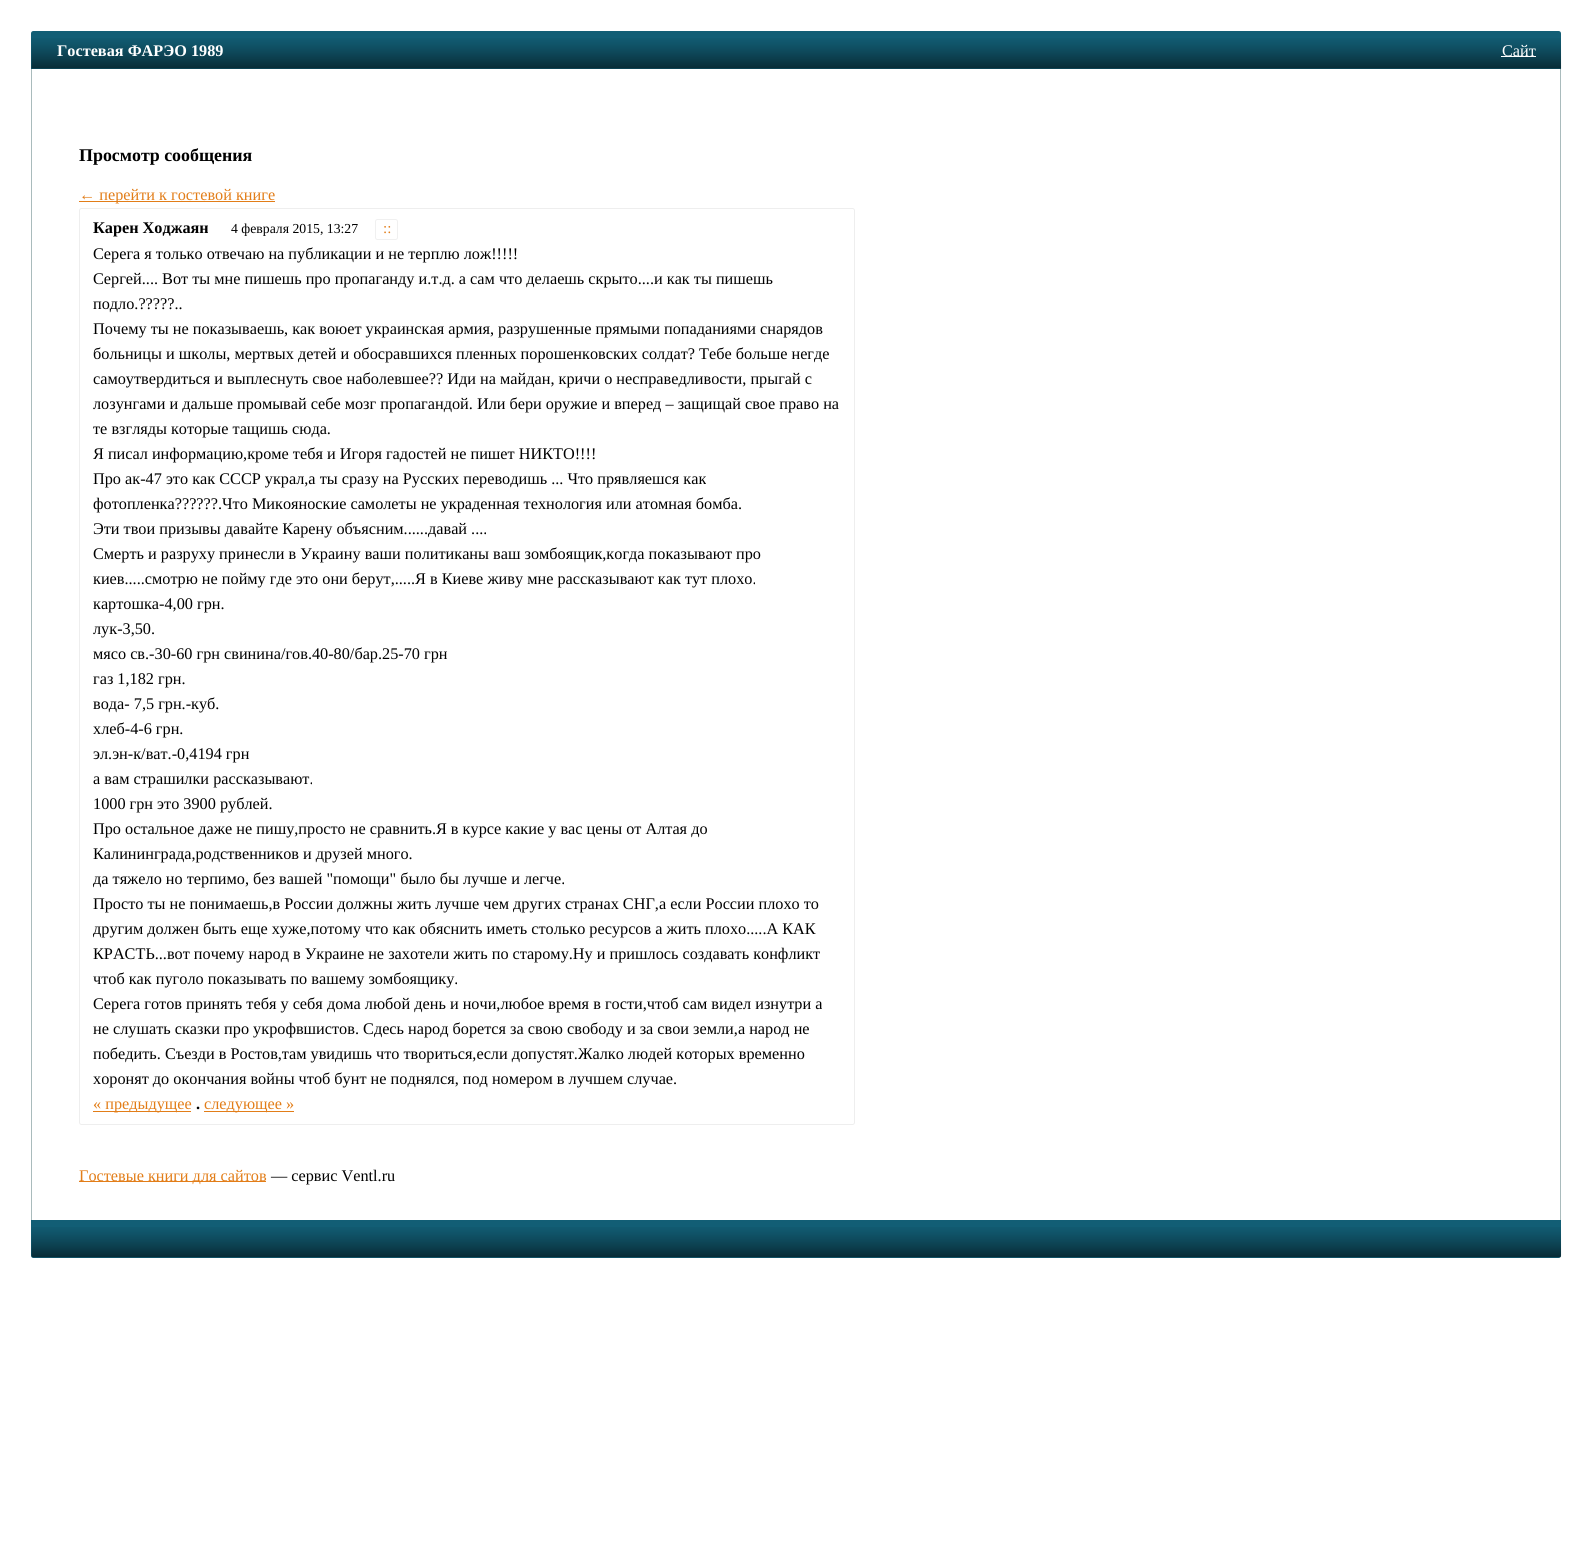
import math
import cairo


def round_path(ctx, x, y, w, h, r):
	ctx.new_sub_path()
	for i, (u, v) in enumerate([(x + w - r, y + h - r), (x + r, y + h - r), (x + r, y + r), (x + w - r, y + r)]):
		ctx.arc(u, v, r, i * math.pi / 2, (i + 1) * math.pi / 2)
	ctx.close_path()

def paste(ctx, path, x, y, w, h):
	ctx.save()
	ctx.set_source_surface(cairo.ImageSurface.create_from_png(path), x, y)
	ctx.rectangle(x, y, w, h)
	ctx.fill()
	ctx.restore()

def draw(ctx):
	ctx.set_source_rgb(1, 1, 1)
	ctx.paint()
	ctx.set_source_rgb(0.071, 0.369, 0.459)
	ctx.new_path()
	ctx.move_to(33.5, 31)
	ctx.line_to(1558.5, 31)
	ctx.curve_to(1560, 31, 1561, 32, 1561, 33.5)
	ctx.line_to(1561, 69)
	ctx.line_to(31, 69)
	ctx.line_to(31, 33.5)
	ctx.curve_to(31, 32, 32, 31, 33.5, 31)
	ctx.close_path()
	ctx.fill()
	paste(ctx, 'media/1.png', 31, 38, 1531, 31)
	ctx.select_font_face('Liberation Serif', cairo.FONT_SLANT_NORMAL, cairo.FONT_WEIGHT_BOLD)
	ctx.set_font_size(16.25)
	ctx.set_source_rgb(1, 1, 1)
	ctx.move_to(57, 56)
	ctx.show_text('Гостевая ФАРЭО 1989')
	ctx.rectangle(1501, 56, 35, 1)
	ctx.fill()
	ctx.select_font_face('Liberation Serif')
	ctx.move_to(1502, 56)
	ctx.show_text('Сайт')
	ctx.set_source_rgb(0.663, 0.733, 0.737)
	ctx.rectangle(1560, 69, 1, 1151)
	ctx.fill()
	ctx.rectangle(31, 69, 1, 1151)
	ctx.fill()
	ctx.select_font_face('Liberation Serif', cairo.FONT_SLANT_NORMAL, cairo.FONT_WEIGHT_BOLD)
	ctx.set_font_size(17.9)
	ctx.set_source_rgb(0, 0, 0)
	ctx.move_to(79, 161)
	ctx.show_text('Просмотр сообщения')
	ctx.set_source_rgb(0.886, 0.49, 0.094)
	ctx.rectangle(79, 201, 196, 1)
	ctx.fill()
	ctx.select_font_face('Liberation Serif')
	ctx.set_font_size(16.25)
	ctx.move_to(79, 200)
	ctx.show_text('← перейти к гостевой книге')
	round_path(ctx, 79.5, 208.5, 775, 916, 2)
	ctx.set_source_rgb(0.933, 0.933, 0.933)
	ctx.set_line_width(1)
	ctx.stroke()
	ctx.select_font_face('Liberation Serif', cairo.FONT_SLANT_NORMAL, cairo.FONT_WEIGHT_BOLD)
	ctx.set_source_rgb(0, 0, 0)
	ctx.move_to(93, 233)
	ctx.show_text('Карен Ходжаян')
	ctx.select_font_face('Liberation Serif')
	ctx.set_font_size(13.75)
	ctx.move_to(231, 233)
	ctx.show_text('4 февраля 2015, 13:27')
	round_path(ctx, 375.5, 219.5, 22, 20, 2)
	ctx.set_source_rgb(0.941, 0.941, 0.941)
	ctx.stroke()
	ctx.set_font_size(15)
	ctx.set_source_rgb(0.886, 0.49, 0.094)
	ctx.move_to(383, 233)
	ctx.show_text('::')
	ctx.set_font_size(16.25)
	ctx.set_source_rgb(0, 0, 0)
	for x, y, s in [
		(93, 259, 'Серега я только отвечаю на публикации и не терплю лож!!!!!'),
		(93, 284, 'Сергей.... Вот ты мне пишешь про пропаганду и.т.д. а сам что делаешь скрыто....и как ты пишешь'),
		(93, 309, 'подло.?????..'),
		(93, 334, 'Почему ты не показываешь, как воюет украинская армия, разрушенные прямыми попаданиями снарядов'),
		(93, 359, 'больницы и школы, мертвых детей и обосравшихся пленных порошенковских солдат? Тебе больше негде'),
		(93, 384, 'самоутвердиться и выплеснуть свое наболевшее?? Иди на майдан, кричи о несправедливости, прыгай с'),
		(93, 409, 'лозунгами и дальше промывай себе мозг пропагандой. Или бери оружие и вперед – защищай свое право на'),
		(93, 434, 'те взгляды которые тащишь сюда.'),
		(93, 459, 'Я писал информацию,кроме тебя и Игоря гадостей не пишет НИКТО!!!!'),
		(93, 484, 'Про ак-47 это как СССР украл,а ты сразу на Русских переводишь ... Что прявляешся как'),
		(93, 509, 'фотопленка??????.Что Микояноские самолеты не украденная технология или атомная бомба.'),
		(93, 534, 'Эти твои призывы давайте Карену объясним......давай ....'),
		(93, 559, 'Смерть и разруху принесли в Украину ваши политиканы ваш зомбоящик,когда показывают про'),
		(93, 584, 'киев.....смотрю не пойму где это они берут,.....Я в Киеве живу мне рассказывают как тут плохо.'),
		(93, 609, 'картошка-4,00 грн.'),
		(93, 634, 'лук-3,50.'),
		(93, 659, 'мясо св.-30-60 грн свинина/гов.40-80/бар.25-70 грн'),
		(93, 684, 'газ 1,182 грн.'),
		(93, 709, 'вода- 7,5 грн.-куб.'),
		(93, 734, 'хлеб-4-6 грн.'),
		(93, 759, 'эл.эн-к/ват.-0,4194 грн'),
		(93, 784, 'а вам страшилки рассказывают.'),
		(93, 809, '1000 грн это 3900 рублей.'),
		(93, 834, 'Про остальное даже не пишу,просто не сравнить.Я в курсе какие у вас цены от Алтая до'),
		(93, 859, 'Калининграда,родственников и друзей много.'),
		(93, 884, 'да тяжело но терпимо, без вашей "помощи" было бы лучше и легче.'),
		(93, 909, 'Просто ты не понимаешь,в России должны жить лучше чем других странах СНГ,а если России плохо то'),
		(93, 934, 'другим должен быть еще хуже,потому что как обяснить иметь столько ресурсов а жить плохо.....А КАК'),
		(93, 959, 'КРАСТЬ...вот почему народ в Украине не захотели жить по старому.Ну и пришлось создавать конфликт'),
		(93, 984, 'чтоб как пуголо показывать по вашему зомбоящику.'),
		(93, 1009, 'Серега готов принять тебя у себя дома любой день и ночи,любое время в гости,чтоб сам видел изнутри а'),
		(93, 1034, 'не слушать сказки про укрофвшистов. Сдесь народ борется за свою свободу и за свои земли,а народ не'),
		(93, 1059, 'победить. Съезди в Ростов,там увидишь что твориться,если допустят.Жалко людей которых временно'),
		(93, 1084, 'хоронят до окончания войны чтоб бунт не поднялся, под номером в лучшем случае.'),
	]:
		ctx.move_to(x, y)
		ctx.show_text(s)
	ctx.set_source_rgb(0.886, 0.49, 0.094)
	ctx.rectangle(93, 1111, 98, 1)
	ctx.fill()
	ctx.move_to(93, 1109)
	ctx.show_text('« предыдущее')
	ctx.select_font_face('Liberation Serif', cairo.FONT_SLANT_NORMAL, cairo.FONT_WEIGHT_BOLD)
	ctx.set_source_rgb(0, 0, 0)
	ctx.move_to(196, 1109)
	ctx.show_text('.')
	ctx.set_source_rgb(0.886, 0.49, 0.094)
	ctx.rectangle(204, 1111, 90, 1)
	ctx.fill()
	ctx.select_font_face('Liberation Serif')
	ctx.move_to(204, 1109)
	ctx.show_text('следующее »')
	ctx.rectangle(79, 1181, 187, 1)
	ctx.fill()
	ctx.move_to(79, 1181)
	ctx.show_text('Гостевые книги для сайтов')
	ctx.set_source_rgb(0, 0, 0)
	ctx.move_to(271, 1181)
	ctx.show_text('— сервис Ventl.ru')
	ctx.set_source_rgb(0.071, 0.369, 0.459)
	ctx.new_path()
	ctx.move_to(31, 1220)
	ctx.line_to(1561, 1220)
	ctx.line_to(1561, 1255.5)
	ctx.curve_to(1561, 1257, 1560, 1258, 1558.5, 1258)
	ctx.line_to(33.5, 1258)
	ctx.curve_to(32, 1258, 31, 1257, 31, 1255.5)
	ctx.close_path()
	ctx.fill()
	paste(ctx, 'media/2.png', 31, 1227, 1531, 31)


surface = cairo.ImageSurface(cairo.FORMAT_RGB24, 1592, 1568)
ctx = cairo.Context(surface)
options = cairo.FontOptions()
options.set_hint_metrics(cairo.HINT_METRICS_OFF)
options.set_hint_style(cairo.HINT_STYLE_NONE)
ctx.set_font_options(options)
ctx.set_miter_limit(4)
draw(ctx)
surface.write_to_png('image.png')
